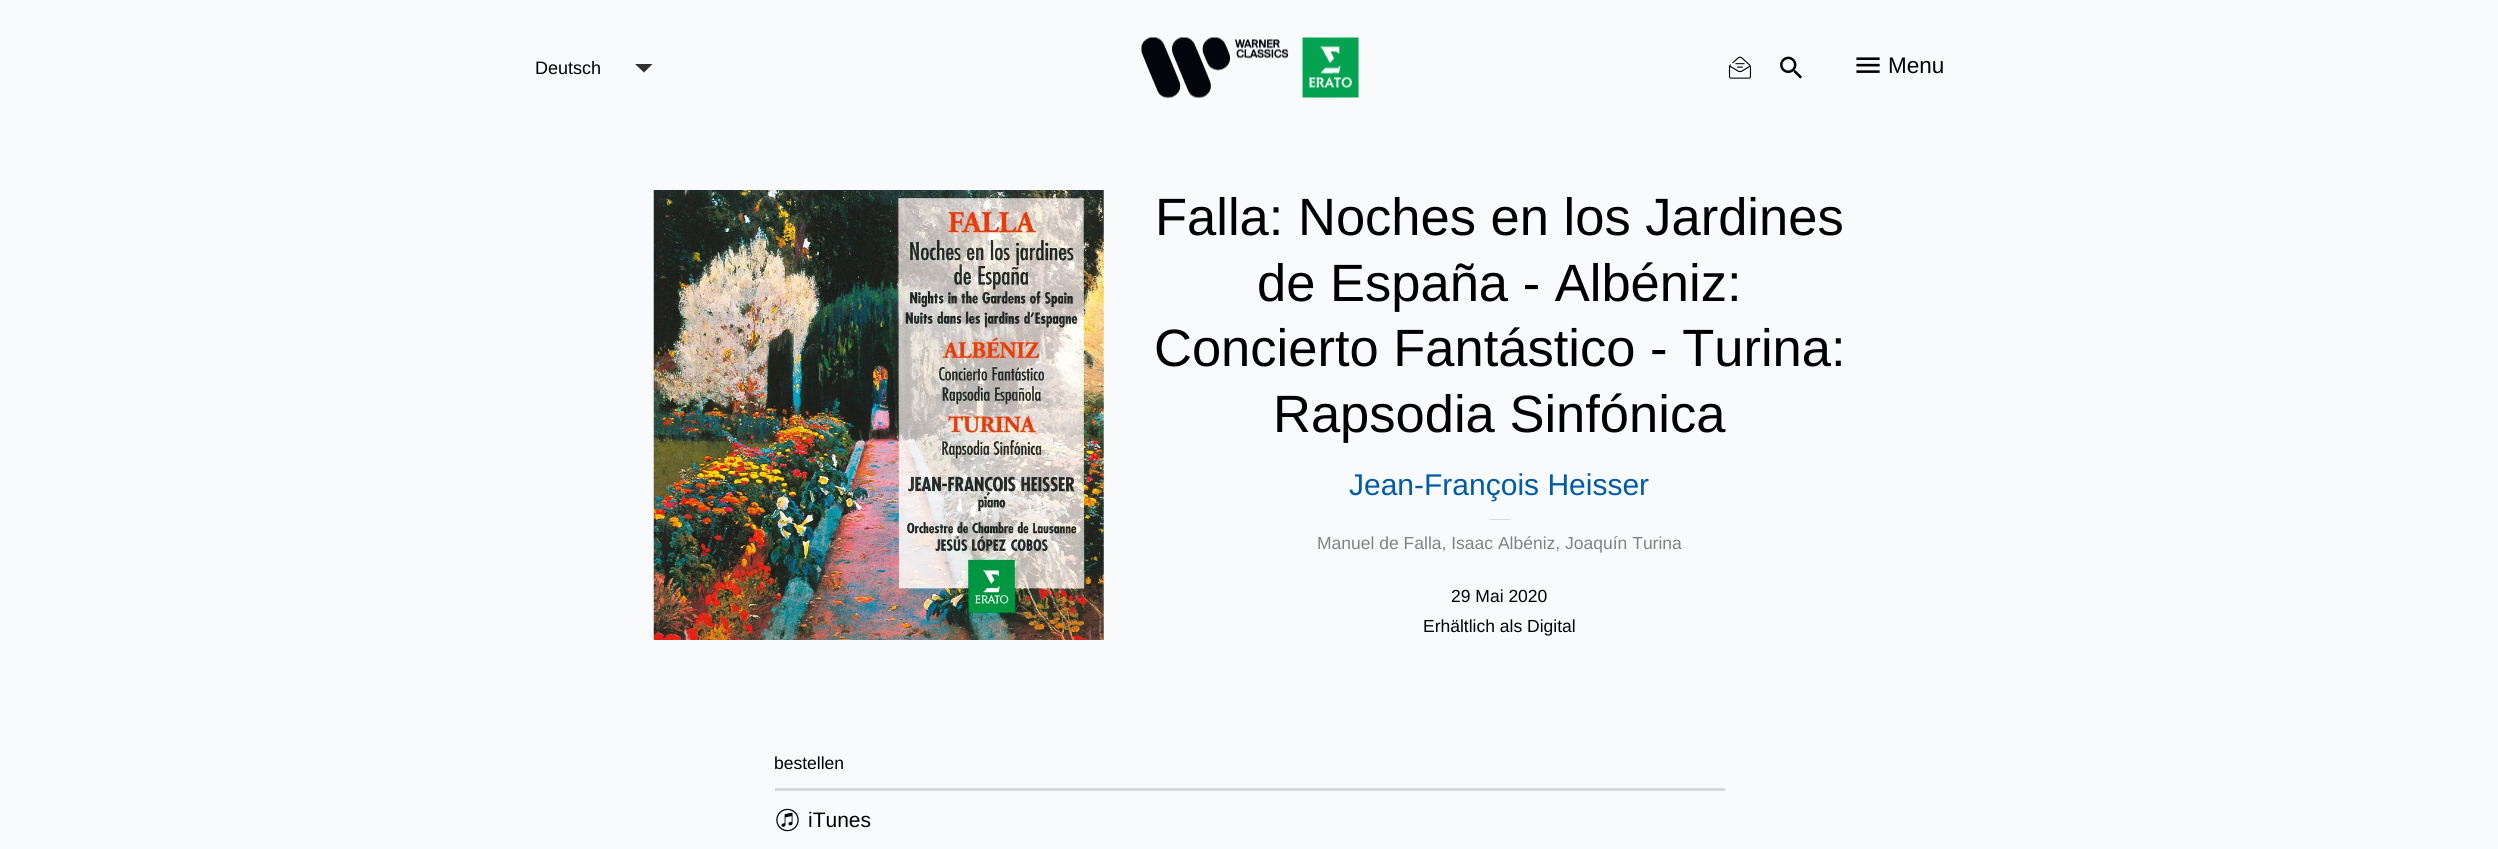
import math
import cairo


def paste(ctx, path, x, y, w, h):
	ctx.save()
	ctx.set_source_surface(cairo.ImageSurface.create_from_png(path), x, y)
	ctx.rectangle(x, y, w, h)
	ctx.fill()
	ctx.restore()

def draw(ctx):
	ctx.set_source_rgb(0.976, 0.98, 0.984)
	ctx.paint()
	ctx.select_font_face('Liberation Sans')
	ctx.set_font_size(18)
	ctx.set_source_rgb(0, 0, 0)
	ctx.move_to(535, 74)
	ctx.show_text('Deutsch')
	ctx.set_source_rgb(0.196, 0.192, 0.188)
	ctx.new_path()
	ctx.move_to(635, 64)
	ctx.line_to(652.5, 64)
	ctx.line_to(644, 72.5)
	ctx.close_path()
	ctx.fill()
	paste(ctx, 'media/1.png', 1141, 37, 218, 61)
	paste(ctx, 'media/2.png', 1728, 56, 24, 23)
	paste(ctx, 'media/3.png', 1780, 56, 22, 23)
	paste(ctx, 'media/4.png', 1856, 57, 24, 16)
	ctx.set_font_size(22.5)
	ctx.set_source_rgb(0, 0, 0)
	ctx.move_to(1888, 73)
	ctx.show_text('Menu')
	paste(ctx, 'media/5.png', 653, 190, 451, 450)
	ctx.set_font_size(52.5)
	for x, y, s in [
		(1155, 235, 'Falla: Noches en los Jardines'),
		(1257, 301, 'de España - Albéniz:'),
		(1154, 366, 'Concierto Fantástico - Turina:'),
		(1273, 432, 'Rapsodia Sinfónica'),
	]:
		ctx.move_to(x, y)
		ctx.show_text(s)
	ctx.set_font_size(30)
	ctx.set_source_rgb(0, 0.357, 0.663)
	ctx.move_to(1349, 495)
	ctx.show_text('Jean-François Heisser')
	ctx.set_source_rgb(0.847, 0.847, 0.847)
	ctx.rectangle(1489, 519, 22, 1)
	ctx.fill()
	ctx.set_font_size(17.5)
	ctx.set_source_rgb(0.51, 0.51, 0.51)
	ctx.move_to(1317, 549)
	ctx.show_text('Manuel de Falla, Isaac Albéniz, Joaquín Turina')
	ctx.set_source_rgb(0, 0, 0)
	for x, y, s in [
		(1451, 602, '29 Mai 2020'),
		(1423, 632, 'Erhältlich als Digital'),
		(774, 769, 'bestellen'),
	]:
		ctx.move_to(x, y)
		ctx.show_text(s)
	ctx.set_source_rgb(0.847, 0.847, 0.847)
	ctx.rectangle(775, 788, 950, 3)
	ctx.fill()
	paste(ctx, 'media/6.png', 776, 808, 23, 24)
	ctx.set_font_size(21)
	ctx.set_source_rgb(0, 0, 0)
	ctx.move_to(808, 827)
	ctx.show_text('iTunes')


surface = cairo.ImageSurface(cairo.FORMAT_RGB24, 2498, 849)
ctx = cairo.Context(surface)
options = cairo.FontOptions()
options.set_hint_metrics(cairo.HINT_METRICS_OFF)
options.set_hint_style(cairo.HINT_STYLE_NONE)
ctx.set_font_options(options)
ctx.set_miter_limit(4)
draw(ctx)
surface.write_to_png('image.png')
